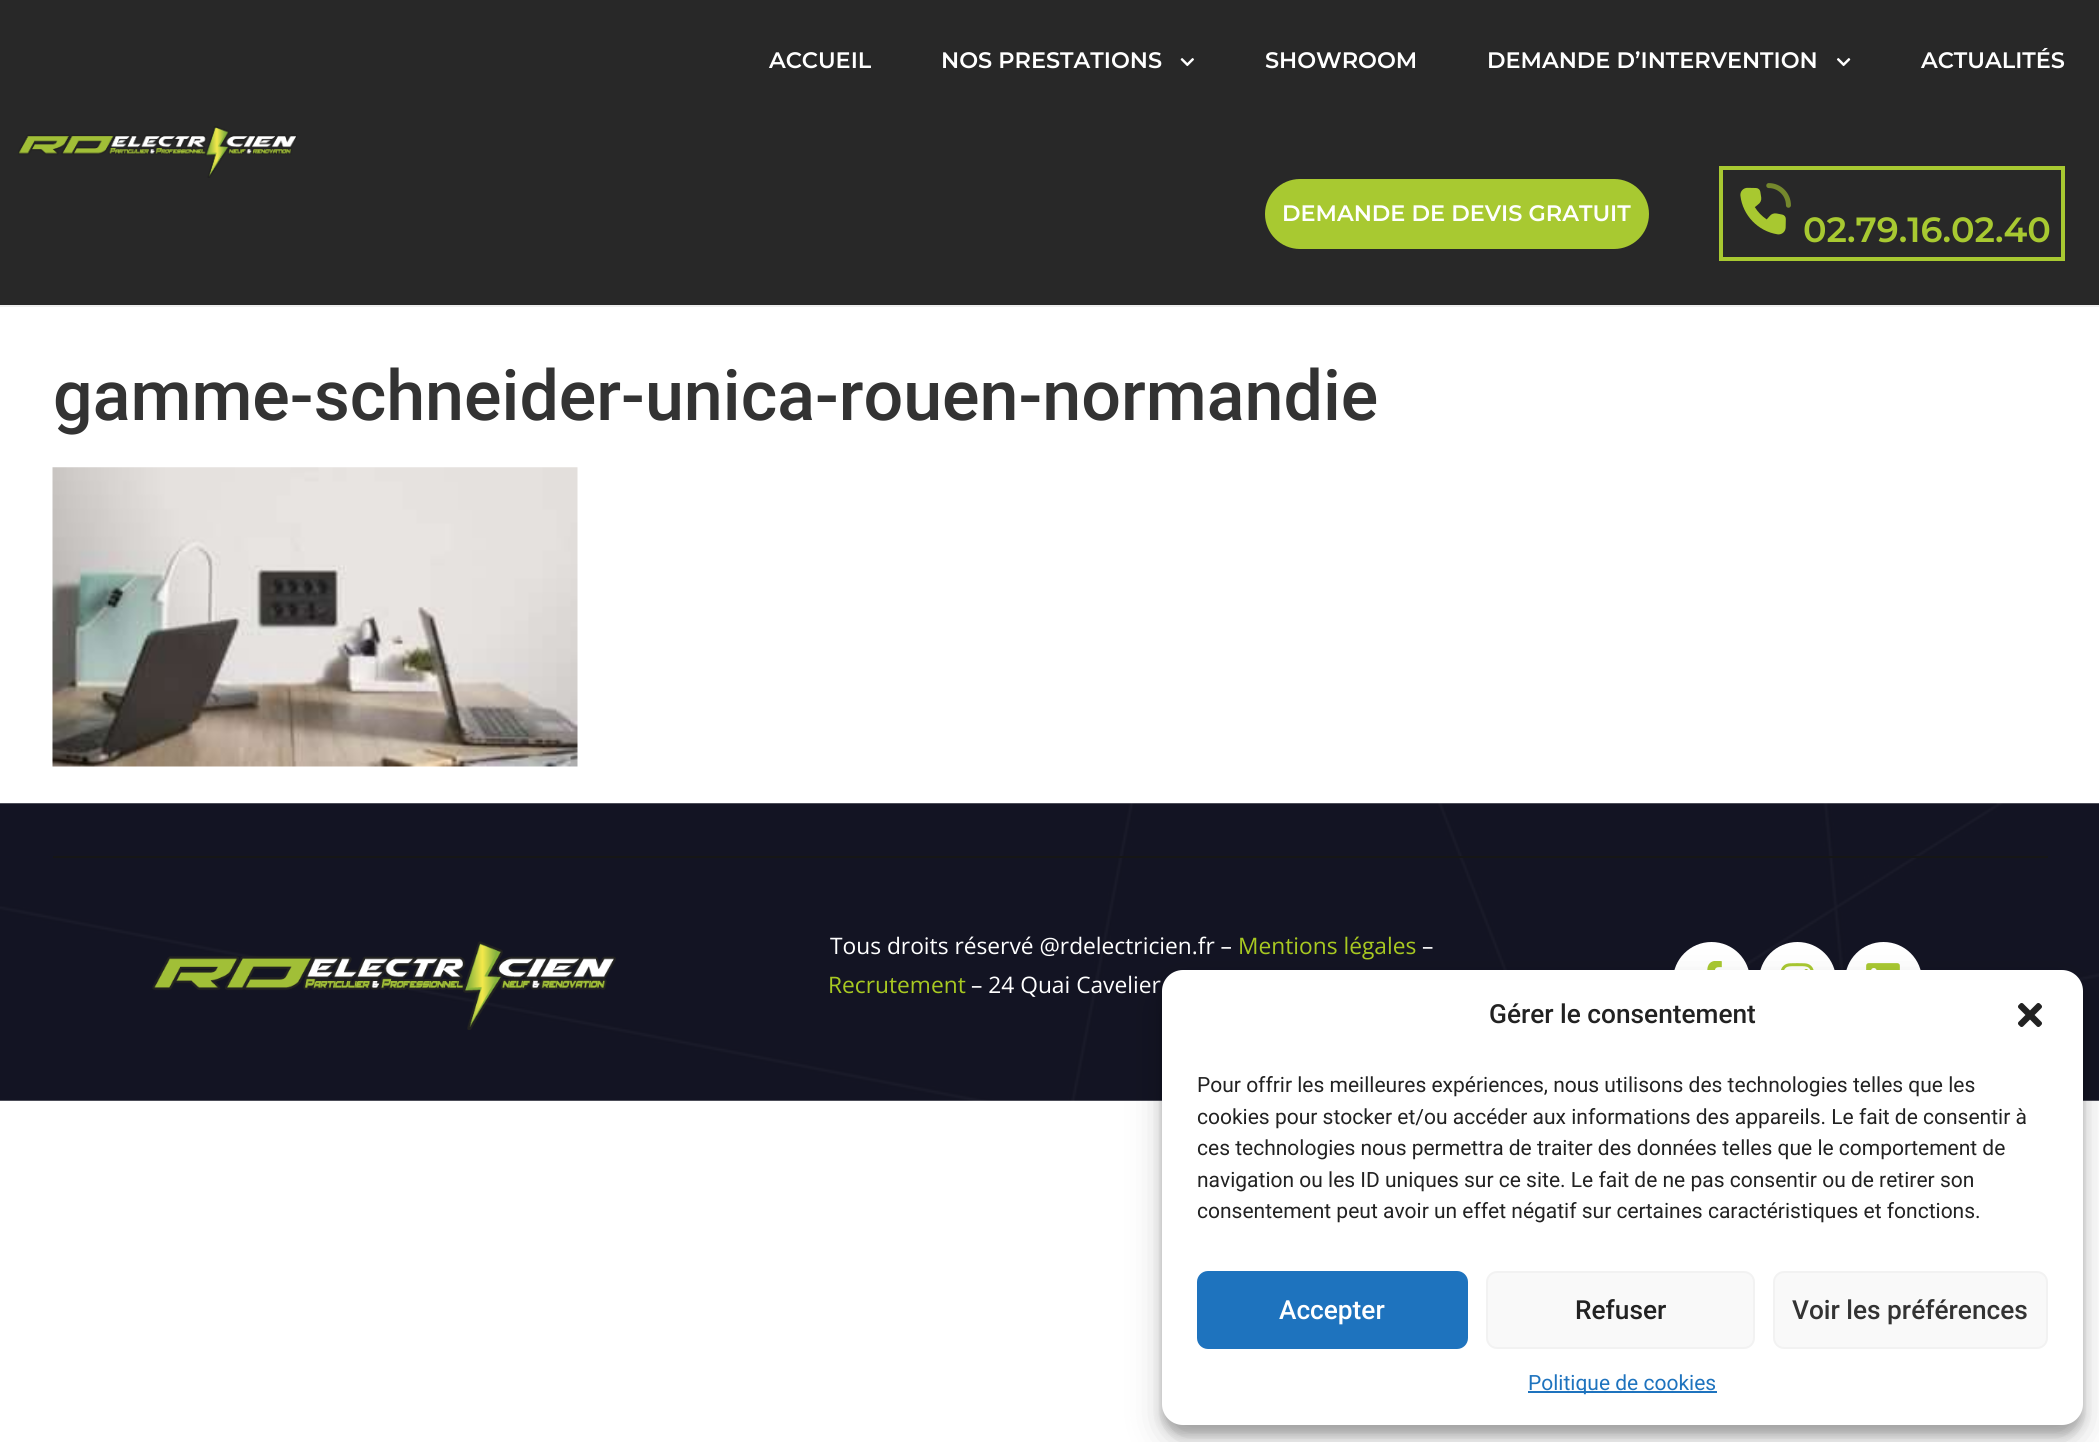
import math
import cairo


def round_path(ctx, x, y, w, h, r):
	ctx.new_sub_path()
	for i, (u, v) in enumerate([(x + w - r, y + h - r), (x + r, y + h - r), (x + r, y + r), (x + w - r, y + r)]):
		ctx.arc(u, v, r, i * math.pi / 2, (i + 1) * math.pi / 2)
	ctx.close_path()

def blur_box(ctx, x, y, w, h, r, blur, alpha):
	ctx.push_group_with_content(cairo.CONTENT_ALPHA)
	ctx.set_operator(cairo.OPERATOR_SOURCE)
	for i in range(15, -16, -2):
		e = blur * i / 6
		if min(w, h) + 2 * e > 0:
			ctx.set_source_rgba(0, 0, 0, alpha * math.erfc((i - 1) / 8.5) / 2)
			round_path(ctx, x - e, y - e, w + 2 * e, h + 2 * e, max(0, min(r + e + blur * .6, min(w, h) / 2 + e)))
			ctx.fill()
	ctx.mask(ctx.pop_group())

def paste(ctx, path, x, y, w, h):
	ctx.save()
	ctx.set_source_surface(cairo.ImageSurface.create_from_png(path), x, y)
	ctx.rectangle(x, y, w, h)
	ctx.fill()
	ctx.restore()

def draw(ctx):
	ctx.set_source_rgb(1, 1, 1)
	ctx.paint()
	ctx.set_source_rgb(0.157, 0.157, 0.157)
	ctx.rectangle(0, 0, 2099, 305)
	ctx.fill()
	ctx.set_source_rgb(0.937, 0.937, 0.937)
	ctx.rectangle(0, 305, 2099, 2)
	ctx.fill()
	paste(ctx, 'media/1.png', 18, 126, 279, 52)
	ctx.select_font_face('Montserrat SemiBold')
	ctx.set_font_size(22.4)
	ctx.set_source_rgb(1, 1, 1)
	ctx.move_to(769, 68)
	ctx.show_text('ACCUEIL')
	ctx.move_to(941, 68)
	ctx.show_text('NOS PRESTATIONS')
	paste(ctx, 'media/2.png', 1180, 58, 14, 9)
	ctx.move_to(1265, 68)
	ctx.show_text('SHOWROOM')
	ctx.move_to(1487, 68)
	ctx.show_text('DEMANDE D’INTERVENTION')
	paste(ctx, 'media/3.png', 1836, 58, 15, 9)
	ctx.move_to(1921, 68)
	ctx.show_text('ACTUALITÉS')
	ctx.set_source_rgb(0.659, 0.788, 0.192)
	round_path(ctx, 1265, 179, 384, 70, 35)
	ctx.fill()
	ctx.set_source_rgb(1, 1, 1)
	ctx.move_to(1282, 221)
	ctx.show_text('DEMANDE DE DEVIS GRATUIT')
	ctx.rectangle(1721, 168, 342, 91)
	ctx.set_source_rgb(0.659, 0.788, 0.192)
	ctx.set_line_width(4)
	ctx.stroke()
	paste(ctx, 'media/4.png', 1740, 183, 51, 52)
	ctx.set_font_size(35)
	ctx.move_to(1803, 242)
	ctx.show_text('02.79.16.02.40')
	ctx.select_font_face('Roboto Medium')
	ctx.set_font_size(70)
	ctx.set_source_rgb(0.2, 0.2, 0.2)
	ctx.move_to(53, 420)
	ctx.show_text('gamme-schneider-unica-rouen-normandie')
	paste(ctx, 'media/5.png', 52, 467, 526, 300)
	paste(ctx, 'media/6.png', 0, 803, 2099, 298)
	ctx.set_source_rgb(0.086, 0.086, 0.086)
	ctx.rectangle(53, 856, 1995, 2)
	ctx.fill()
	paste(ctx, 'media/7.png', 152, 941, 464, 89)
	ctx.select_font_face('Open Sans')
	ctx.set_font_size(22.75)
	ctx.set_source_rgb(1, 1, 1)
	ctx.move_to(830, 954)
	ctx.show_text('Tous droits réservé @rdelectricien.fr –')
	ctx.set_source_rgb(0.659, 0.788, 0.129)
	ctx.move_to(1238, 954)
	ctx.show_text('Mentions légales')
	ctx.set_source_rgb(1, 1, 1)
	ctx.move_to(1422, 954)
	ctx.show_text('–')
	ctx.set_source_rgb(0.659, 0.788, 0.129)
	ctx.move_to(828, 993)
	ctx.show_text('Recrutement')
	ctx.set_source_rgb(1, 1, 1)
	ctx.move_to(971, 993)
	ctx.show_text('– 24 Quai Cavelier')
	ctx.new_path()
	ctx.arc(1711.5, 980.5, 38.5, 0, 2 * math.pi)
	ctx.fill()
	paste(ctx, 'media/8.png', 1707, 961, 15, 9)
	ctx.arc(1797.5, 980.5, 38.5, 0, 2 * math.pi)
	ctx.fill()
	paste(ctx, 'media/9.png', 1781, 963, 33, 7)
	ctx.arc(1883.5, 980.5, 38.5, 0, 2 * math.pi)
	ctx.fill()
	paste(ctx, 'media/10.png', 1866, 963, 34, 7)
	ctx.set_source_rgb(0, 0, 0)
	blur_box(ctx, 1162, 980, 921, 455, 21, 5, 0.23)
	blur_box(ctx, 1162, 987, 921, 455, 21, 17.5, 0.19)
	ctx.set_source_rgb(1, 1, 1)
	round_path(ctx, 1162, 970, 921, 455, 21)
	ctx.fill()
	ctx.select_font_face('Roboto Medium')
	ctx.set_font_size(26.25)
	ctx.set_source_rgb(0.133, 0.133, 0.133)
	ctx.move_to(1489, 1023)
	ctx.show_text('Gérer le consentement')
	paste(ctx, 'media/11.png', 2018, 1003, 24, 24)
	ctx.select_font_face('Roboto')
	ctx.set_font_size(21)
	for x, y, s in [
		(1197, 1092, 'Pour offrir les meilleures expériences, nous utilisons des technologies telles que les'),
		(1197, 1124, 'cookies pour stocker et/ou accéder aux informations des appareils. Le fait de consentir à'),
		(1197, 1155, 'ces technologies nous permettra de traiter des données telles que le comportement de'),
		(1197, 1187, 'navigation ou les ID uniques sur ce site. Le fait de ne pas consentir ou de retirer son'),
		(1197, 1218, 'consentement peut avoir un effet négatif sur certaines caractéristiques et fonctions.'),
	]:
		ctx.move_to(x, y)
		ctx.show_text(s)
	ctx.set_source_rgb(0.118, 0.451, 0.745)
	round_path(ctx, 1198, 1272, 269, 76, 10)
	ctx.fill_preserve()
	ctx.set_line_width(2)
	ctx.stroke()
	ctx.select_font_face('Roboto Medium')
	ctx.set_font_size(26.25)
	ctx.set_source_rgb(1, 1, 1)
	ctx.move_to(1279, 1319)
	ctx.show_text('Accepter')
	ctx.set_source_rgb(0.976, 0.976, 0.976)
	round_path(ctx, 1487, 1272, 267, 76, 10)
	ctx.fill_preserve()
	ctx.set_source_rgb(0.949, 0.949, 0.949)
	ctx.stroke()
	ctx.set_source_rgb(0.133, 0.133, 0.133)
	ctx.move_to(1575, 1319)
	ctx.show_text('Refuser')
	ctx.set_source_rgb(0.976, 0.976, 0.976)
	round_path(ctx, 1774, 1272, 273, 76, 10)
	ctx.fill_preserve()
	ctx.set_source_rgb(0.949, 0.949, 0.949)
	ctx.stroke()
	ctx.set_source_rgb(0.2, 0.2, 0.2)
	ctx.move_to(1792, 1319)
	ctx.show_text('Voir les préférences')
	ctx.set_source_rgb(0.118, 0.451, 0.745)
	ctx.rectangle(1528, 1391, 189, 2)
	ctx.fill()
	ctx.select_font_face('Roboto')
	ctx.set_font_size(21)
	ctx.move_to(1528, 1390)
	ctx.show_text('Politique de cookies')


surface = cairo.ImageSurface(cairo.FORMAT_RGB24, 2099, 1442)
ctx = cairo.Context(surface)
options = cairo.FontOptions()
options.set_hint_metrics(cairo.HINT_METRICS_OFF)
options.set_hint_style(cairo.HINT_STYLE_NONE)
ctx.set_font_options(options)
ctx.set_miter_limit(4)
draw(ctx)
surface.write_to_png('image.png')
